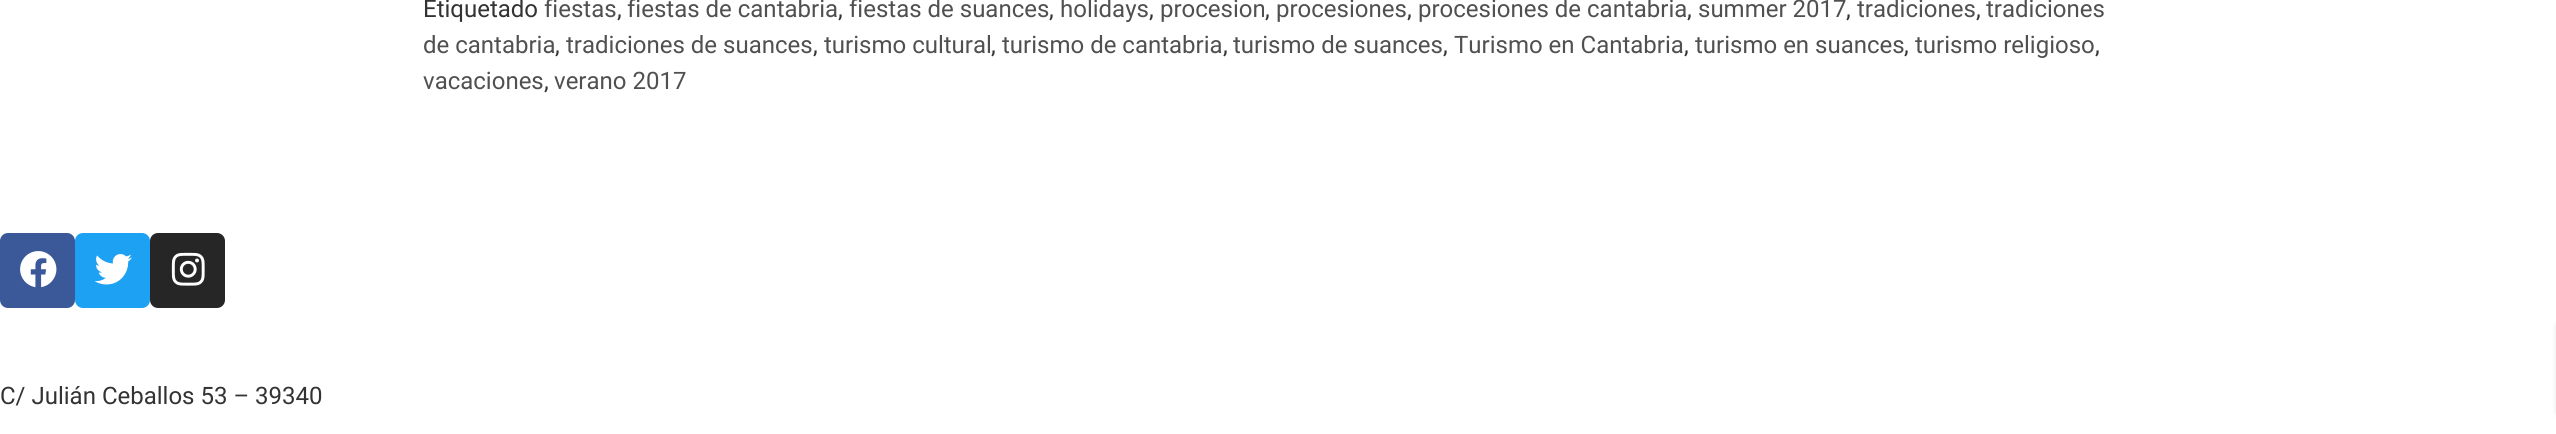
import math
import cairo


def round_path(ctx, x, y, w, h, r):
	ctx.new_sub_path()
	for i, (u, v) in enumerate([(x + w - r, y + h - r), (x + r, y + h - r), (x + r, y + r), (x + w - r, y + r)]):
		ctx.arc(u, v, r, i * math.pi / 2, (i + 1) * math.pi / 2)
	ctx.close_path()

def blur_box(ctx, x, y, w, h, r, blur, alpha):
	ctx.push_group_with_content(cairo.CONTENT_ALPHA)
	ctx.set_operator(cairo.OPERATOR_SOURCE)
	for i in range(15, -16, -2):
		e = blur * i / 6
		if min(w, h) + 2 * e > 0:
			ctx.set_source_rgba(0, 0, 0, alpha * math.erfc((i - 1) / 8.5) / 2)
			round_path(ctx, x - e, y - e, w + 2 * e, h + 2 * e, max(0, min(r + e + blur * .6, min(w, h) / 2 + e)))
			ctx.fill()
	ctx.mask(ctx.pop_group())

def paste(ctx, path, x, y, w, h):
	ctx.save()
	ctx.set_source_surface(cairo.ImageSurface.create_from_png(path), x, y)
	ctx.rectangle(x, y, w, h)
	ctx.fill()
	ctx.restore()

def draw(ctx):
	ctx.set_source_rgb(1, 1, 1)
	ctx.paint()
	ctx.select_font_face('Roboto')
	ctx.set_font_size(24)
	ctx.set_source_rgb(0.2, 0.2, 0.2)
	ctx.move_to(423, 17)
	ctx.show_text('Etiquetado')
	ctx.set_source_rgb(0.314, 0.314, 0.314)
	ctx.move_to(544, 17)
	ctx.show_text('fiestas')
	ctx.set_source_rgb(0.2, 0.2, 0.2)
	ctx.move_to(617, 17)
	ctx.show_text(',')
	ctx.set_source_rgb(0.314, 0.314, 0.314)
	ctx.move_to(627, 17)
	ctx.show_text('fiestas de cantabria')
	ctx.set_source_rgb(0.2, 0.2, 0.2)
	ctx.move_to(838, 17)
	ctx.show_text(',')
	ctx.set_source_rgb(0.314, 0.314, 0.314)
	ctx.move_to(849, 17)
	ctx.show_text('fiestas de suances')
	ctx.set_source_rgb(0.2, 0.2, 0.2)
	ctx.move_to(1049, 17)
	ctx.show_text(',')
	ctx.set_source_rgb(0.314, 0.314, 0.314)
	ctx.move_to(1060, 17)
	ctx.show_text('holidays')
	ctx.set_source_rgb(0.2, 0.2, 0.2)
	ctx.move_to(1149, 17)
	ctx.show_text(',')
	ctx.set_source_rgb(0.314, 0.314, 0.314)
	ctx.move_to(1160, 17)
	ctx.show_text('procesion')
	ctx.set_source_rgb(0.2, 0.2, 0.2)
	ctx.move_to(1265, 17)
	ctx.show_text(',')
	ctx.set_source_rgb(0.314, 0.314, 0.314)
	ctx.move_to(1276, 17)
	ctx.show_text('procesiones')
	ctx.set_source_rgb(0.2, 0.2, 0.2)
	ctx.move_to(1407, 17)
	ctx.show_text(',')
	ctx.set_source_rgb(0.314, 0.314, 0.314)
	ctx.move_to(1418, 17)
	ctx.show_text('procesiones de cantabria')
	ctx.set_source_rgb(0.2, 0.2, 0.2)
	ctx.move_to(1687, 17)
	ctx.show_text(',')
	ctx.set_source_rgb(0.314, 0.314, 0.314)
	ctx.move_to(1698, 17)
	ctx.show_text('summer 2017')
	ctx.set_source_rgb(0.2, 0.2, 0.2)
	ctx.move_to(1846, 17)
	ctx.show_text(',')
	ctx.set_source_rgb(0.314, 0.314, 0.314)
	ctx.move_to(1857, 17)
	ctx.show_text('tradiciones')
	ctx.set_source_rgb(0.2, 0.2, 0.2)
	ctx.move_to(1976, 17)
	ctx.show_text(',')
	ctx.set_source_rgb(0.314, 0.314, 0.314)
	ctx.move_to(1986, 17)
	ctx.show_text('tradiciones')
	ctx.move_to(423, 53)
	ctx.show_text('de cantabria')
	ctx.set_source_rgb(0.2, 0.2, 0.2)
	ctx.move_to(555, 53)
	ctx.show_text(',')
	ctx.set_source_rgb(0.314, 0.314, 0.314)
	ctx.move_to(566, 53)
	ctx.show_text('tradiciones de suances')
	ctx.set_source_rgb(0.2, 0.2, 0.2)
	ctx.move_to(813, 53)
	ctx.show_text(',')
	ctx.set_source_rgb(0.314, 0.314, 0.314)
	ctx.move_to(824, 53)
	ctx.show_text('turismo cultural')
	ctx.set_source_rgb(0.2, 0.2, 0.2)
	ctx.move_to(991, 53)
	ctx.show_text(',')
	ctx.set_source_rgb(0.314, 0.314, 0.314)
	ctx.move_to(1002, 53)
	ctx.show_text('turismo de cantabria')
	ctx.set_source_rgb(0.2, 0.2, 0.2)
	ctx.move_to(1223, 53)
	ctx.show_text(',')
	ctx.set_source_rgb(0.314, 0.314, 0.314)
	ctx.move_to(1233, 53)
	ctx.show_text('turismo de suances')
	ctx.set_source_rgb(0.2, 0.2, 0.2)
	ctx.move_to(1443, 53)
	ctx.show_text(',')
	ctx.set_source_rgb(0.314, 0.314, 0.314)
	ctx.move_to(1454, 53)
	ctx.show_text('Turismo en Cantabria')
	ctx.set_source_rgb(0.2, 0.2, 0.2)
	ctx.move_to(1684, 53)
	ctx.show_text(',')
	ctx.set_source_rgb(0.314, 0.314, 0.314)
	ctx.move_to(1695, 53)
	ctx.show_text('turismo en suances')
	ctx.set_source_rgb(0.2, 0.2, 0.2)
	ctx.move_to(1904, 53)
	ctx.show_text(',')
	ctx.set_source_rgb(0.314, 0.314, 0.314)
	ctx.move_to(1915, 53)
	ctx.show_text('turismo religioso')
	ctx.set_source_rgb(0.2, 0.2, 0.2)
	ctx.move_to(2095, 53)
	ctx.show_text(',')
	ctx.set_source_rgb(0.314, 0.314, 0.314)
	ctx.move_to(423, 89)
	ctx.show_text('vacaciones')
	ctx.set_source_rgb(0.2, 0.2, 0.2)
	ctx.move_to(544, 89)
	ctx.show_text(',')
	ctx.set_source_rgb(0.314, 0.314, 0.314)
	ctx.move_to(554, 89)
	ctx.show_text('verano 2017')
	ctx.set_source_rgb(0.231, 0.349, 0.596)
	round_path(ctx, 0, 233, 75, 75, 8)
	ctx.fill()
	paste(ctx, 'media/1.png', 20, 251, 37, 37)
	ctx.set_source_rgb(0.114, 0.631, 0.949)
	round_path(ctx, 75, 233, 75, 75, 8)
	ctx.fill()
	paste(ctx, 'media/2.png', 95, 254, 37, 31)
	ctx.set_source_rgb(0.149, 0.149, 0.149)
	round_path(ctx, 150, 233, 75, 75, 8)
	ctx.fill()
	paste(ctx, 'media/3.png', 171, 252, 34, 34)
	ctx.set_source_rgb(0.2, 0.2, 0.2)
	ctx.move_to(0, 404)
	ctx.show_text('C/ Julián Ceballos 53 – 39340')
	ctx.set_source_rgb(0.502, 0.502, 0.502)
	blur_box(ctx, 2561, 324, 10, 90, 3, 4, 1)


surface = cairo.ImageSurface(cairo.FORMAT_RGB24, 2556, 434)
ctx = cairo.Context(surface)
options = cairo.FontOptions()
options.set_hint_metrics(cairo.HINT_METRICS_OFF)
options.set_hint_style(cairo.HINT_STYLE_NONE)
ctx.set_font_options(options)
ctx.set_miter_limit(4)
draw(ctx)
surface.write_to_png('image.png')
